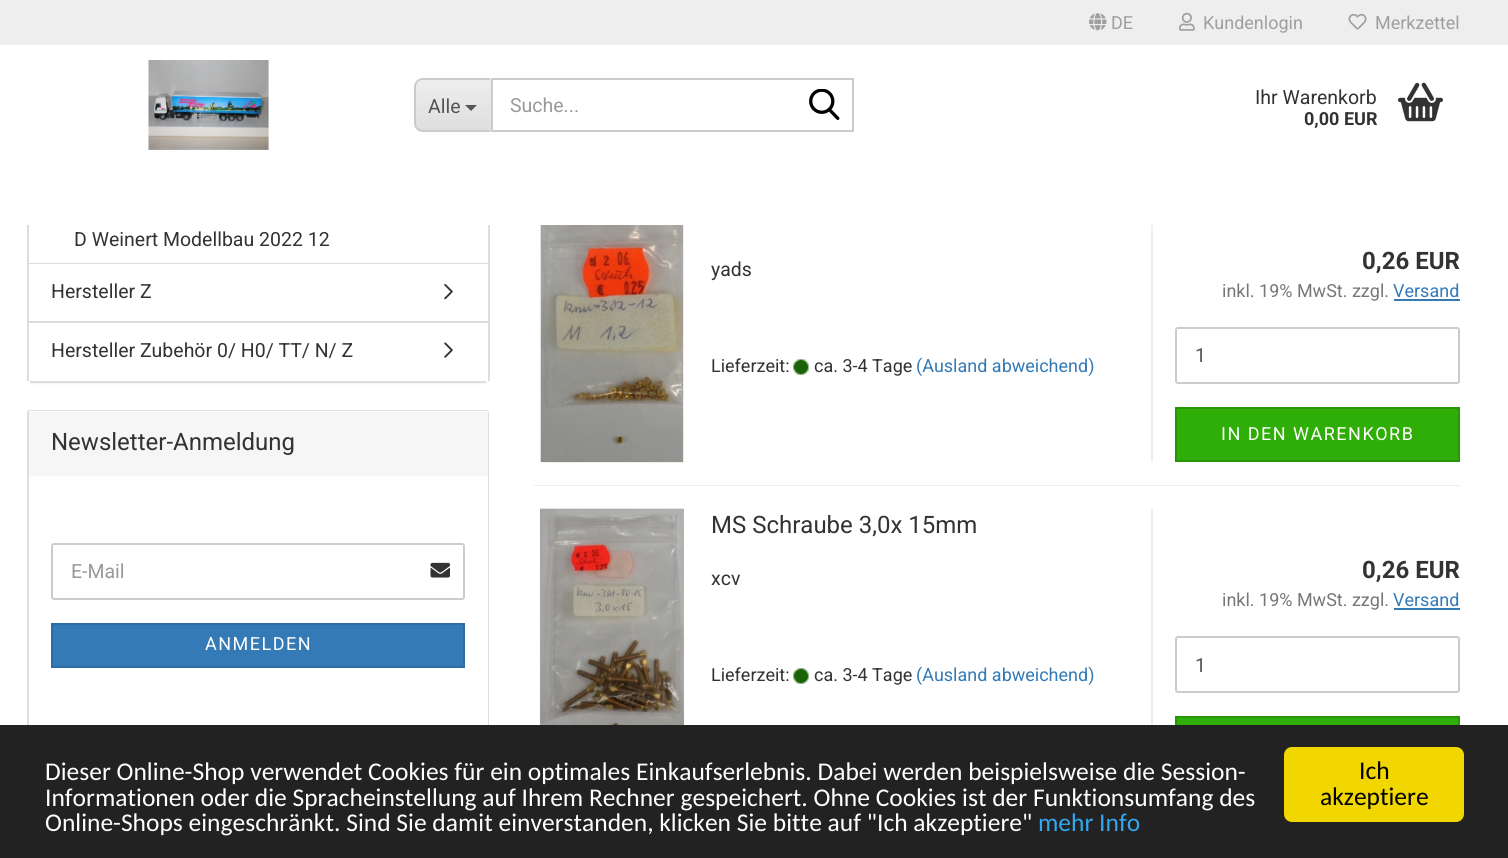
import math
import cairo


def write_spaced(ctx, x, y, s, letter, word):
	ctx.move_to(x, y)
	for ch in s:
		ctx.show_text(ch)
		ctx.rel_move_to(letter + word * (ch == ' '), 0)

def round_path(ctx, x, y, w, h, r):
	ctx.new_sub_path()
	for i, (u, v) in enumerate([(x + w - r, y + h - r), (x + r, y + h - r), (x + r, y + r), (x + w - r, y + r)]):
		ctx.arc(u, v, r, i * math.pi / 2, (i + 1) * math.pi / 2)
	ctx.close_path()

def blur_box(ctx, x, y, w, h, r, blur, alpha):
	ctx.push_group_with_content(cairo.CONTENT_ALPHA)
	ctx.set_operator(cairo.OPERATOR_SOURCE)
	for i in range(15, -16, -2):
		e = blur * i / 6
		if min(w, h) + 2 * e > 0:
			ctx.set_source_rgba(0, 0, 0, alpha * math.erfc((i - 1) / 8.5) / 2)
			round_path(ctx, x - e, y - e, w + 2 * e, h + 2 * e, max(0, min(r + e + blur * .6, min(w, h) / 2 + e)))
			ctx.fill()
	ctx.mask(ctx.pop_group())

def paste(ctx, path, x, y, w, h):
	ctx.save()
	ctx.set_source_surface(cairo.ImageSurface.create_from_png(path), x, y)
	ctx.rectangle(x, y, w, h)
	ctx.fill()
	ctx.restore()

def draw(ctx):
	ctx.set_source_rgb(1, 1, 1)
	ctx.paint()
	ctx.set_source_rgb(0, 0, 0)
	blur_box(ctx, 27, -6, 462, 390, 3, 1, 0.05)
	ctx.set_source_rgb(1, 1, 1)
	round_path(ctx, 27, -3, 462, 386, 3)
	ctx.fill()
	ctx.rectangle(26, 45, 464, 180)
	ctx.fill()
	ctx.set_source_rgb(0.933, 0.933, 0.933)
	ctx.rectangle(0, 0, 1508, 45)
	ctx.fill()
	paste(ctx, 'media/1.png', 1089, 13, 18, 18)
	ctx.select_font_face('Roboto')
	ctx.set_font_size(18)
	ctx.set_source_rgb(0.624, 0.624, 0.624)
	ctx.move_to(1111, 29)
	ctx.show_text('DE')
	paste(ctx, 'media/2.png', 1179, 12, 16, 19)
	ctx.move_to(1203, 29)
	ctx.show_text('Kundenlogin')
	paste(ctx, 'media/3.png', 1348, 13, 19, 17)
	ctx.move_to(1375, 29)
	ctx.show_text('Merkzettel')
	paste(ctx, 'media/4.png', 148, 60, 121, 90)
	ctx.set_source_rgb(0.953, 0.953, 0.953)
	ctx.new_path()
	ctx.move_to(423, 78)
	ctx.line_to(491, 78)
	ctx.line_to(491, 132)
	ctx.line_to(423, 132)
	ctx.curve_to(418, 132, 414, 128, 414, 123)
	ctx.line_to(414, 87)
	ctx.curve_to(414, 82, 418, 78, 423, 78)
	ctx.close_path()
	ctx.fill()
	ctx.save()
	ctx.new_path()
	ctx.move_to(423, 78)
	ctx.line_to(491, 78)
	ctx.line_to(491, 132)
	ctx.line_to(423, 132)
	ctx.curve_to(418, 132, 414, 128, 414, 123)
	ctx.line_to(414, 87)
	ctx.curve_to(414, 82, 418, 78, 423, 78)
	ctx.close_path()
	ctx.clip()
	gradient = cairo.LinearGradient(453, 80, 453, 131)
	gradient.add_color_stop_rgba(0, 0.933, 0.933, 0.933, 1)
	gradient.add_color_stop_rgba(1, 0.871, 0.871, 0.871, 1)
	ctx.set_source(gradient)
	ctx.rectangle(414, 80, 77, 51)
	ctx.fill()
	ctx.restore()
	ctx.set_source_rgb(0.8, 0.8, 0.8)
	ctx.set_fill_rule(cairo.FILL_RULE_EVEN_ODD)
	ctx.new_path()
	ctx.move_to(423, 78)
	ctx.line_to(490, 78)
	ctx.line_to(490, 132)
	ctx.line_to(423, 132)
	ctx.curve_to(418, 132, 414, 128, 414, 123)
	ctx.line_to(414, 87)
	ctx.curve_to(414, 82, 418, 78, 423, 78)
	ctx.close_path()
	ctx.move_to(423, 80)
	ctx.line_to(490, 80)
	ctx.line_to(490, 130)
	ctx.line_to(423, 130)
	ctx.curve_to(419, 130, 416, 127, 416, 123)
	ctx.line_to(416, 87)
	ctx.curve_to(416, 83, 419, 80, 423, 80)
	ctx.close_path()
	ctx.fill()
	ctx.set_font_size(19.5)
	ctx.set_source_rgb(0.333, 0.333, 0.333)
	ctx.move_to(428, 113)
	ctx.show_text('Alle')
	ctx.set_fill_rule(cairo.FILL_RULE_WINDING)
	ctx.new_path()
	ctx.move_to(465, 105)
	ctx.line_to(477, 105)
	ctx.line_to(471, 111)
	ctx.close_path()
	ctx.fill()
	ctx.rectangle(492, 79, 361, 52)
	ctx.set_source_rgb(0.8, 0.8, 0.8)
	ctx.stroke()
	ctx.set_source_rgb(0.6, 0.6, 0.6)
	ctx.move_to(510, 112)
	ctx.show_text('Suche...')
	paste(ctx, 'media/5.png', 809, 89, 31, 31)
	ctx.set_source_rgb(0.2, 0.2, 0.2)
	ctx.move_to(1255, 104)
	ctx.show_text('Ihr Warenkorb')
	ctx.select_font_face('Roboto', cairo.FONT_SLANT_NORMAL, cairo.FONT_WEIGHT_BOLD)
	ctx.set_font_size(18)
	ctx.move_to(1304, 125)
	ctx.show_text('0,00 EUR')
	paste(ctx, 'media/6.png', 1398, 82, 45, 40)
	ctx.set_source_rgb(0.867, 0.867, 0.867)
	ctx.rectangle(488, 225, 2, 156)
	ctx.rectangle(27, 225, 2, 156)
	ctx.rectangle(29, 263, 459, 1)
	ctx.fill()
	ctx.select_font_face('Roboto')
	ctx.set_font_size(19.5)
	ctx.set_source_rgb(0.2, 0.2, 0.2)
	ctx.move_to(74, 246)
	ctx.show_text('D Weinert Modellbau 2022 12')
	ctx.set_source_rgb(0.867, 0.867, 0.867)
	ctx.rectangle(29, 321, 459, 2)
	ctx.fill()
	ctx.set_source_rgb(0.2, 0.2, 0.2)
	ctx.move_to(51, 298)
	ctx.show_text('Hersteller Z')
	paste(ctx, 'media/7.png', 444, 284, 9, 16)
	ctx.set_source_rgb(0.867, 0.867, 0.867)
	ctx.rectangle(30, 381, 456, 2)
	ctx.fill()
	ctx.set_source_rgb(0.2, 0.2, 0.2)
	ctx.move_to(51, 357)
	ctx.show_text('Hersteller Zubehör 0/ H0/ TT/ N/ Z')
	paste(ctx, 'media/8.png', 444, 342, 9, 16)
	round_path(ctx, 28, 411, 460, 347, 2)
	ctx.set_source_rgb(0.867, 0.867, 0.867)
	ctx.stroke()
	ctx.set_source_rgb(0.961, 0.961, 0.961)
	ctx.new_path()
	ctx.move_to(30.5, 411)
	ctx.line_to(486.5, 411)
	ctx.curve_to(487.5, 411, 488, 411.5, 488, 412.5)
	ctx.line_to(488, 476)
	ctx.line_to(29, 476)
	ctx.line_to(29, 412.5)
	ctx.curve_to(29, 411.5, 29.5, 411, 30.5, 411)
	ctx.close_path()
	ctx.fill()
	ctx.set_source_rgb(1, 1, 1)
	ctx.new_path()
	ctx.move_to(30, 412)
	ctx.line_to(486, 412)
	ctx.curve_to(487, 412, 488, 413, 488, 414)
	ctx.curve_to(488, 413, 488, 411, 486, 411)
	ctx.line_to(30, 411)
	ctx.line_to(29, 412)
	ctx.close_path()
	ctx.fill()
	ctx.set_font_size(24)
	ctx.set_source_rgb(0.2, 0.2, 0.2)
	ctx.move_to(51, 450)
	ctx.show_text('Newsletter-Anmeldung')
	ctx.set_source_rgb(1, 1, 1)
	ctx.rectangle(487, 476, 1, 249)
	ctx.fill()
	round_path(ctx, 52, 544, 412, 55, 2)
	ctx.set_source_rgb(0.8, 0.8, 0.8)
	ctx.stroke()
	ctx.set_font_size(19.5)
	ctx.set_source_rgb(0.6, 0.6, 0.6)
	ctx.move_to(71, 578)
	ctx.show_text('E-Mail')
	paste(ctx, 'media/9.png', 430, 562, 20, 16)
	ctx.set_source_rgb(0.2, 0.478, 0.718)
	ctx.rectangle(52, 624, 412, 43)
	ctx.fill_preserve()
	ctx.set_source_rgb(0.176, 0.427, 0.639)
	ctx.stroke()
	ctx.set_font_size(18)
	ctx.set_source_rgb(1, 1, 1)
	write_spaced(ctx, 205, 650, 'ANMELDEN', 1.5, 0)
	ctx.set_source_rgb(0.933, 0.933, 0.933)
	ctx.rectangle(534, 485, 926, 1)
	ctx.fill()
	paste(ctx, 'media/10.png', 540, 225, 144, 238)
	ctx.set_font_size(19.5)
	ctx.set_source_rgb(0.2, 0.2, 0.2)
	ctx.move_to(711, 276)
	ctx.show_text('yads')
	ctx.set_font_size(18)
	ctx.move_to(711, 372)
	ctx.show_text('Lieferzeit:')
	paste(ctx, 'media/11.png', 793, 359, 16, 16)
	ctx.move_to(814, 372)
	ctx.show_text('ca. 3-4 Tage')
	ctx.set_source_rgb(0.2, 0.478, 0.718)
	ctx.move_to(916, 372)
	ctx.show_text('(Ausland abweichend)')
	ctx.set_source_rgb(0.933, 0.933, 0.933)
	ctx.rectangle(1151, 225, 2, 237)
	ctx.fill()
	ctx.select_font_face('Roboto', cairo.FONT_SLANT_NORMAL, cairo.FONT_WEIGHT_BOLD)
	ctx.set_font_size(24)
	ctx.set_source_rgb(0.2, 0.2, 0.2)
	ctx.move_to(1362, 269)
	ctx.show_text('0,26 EUR')
	ctx.select_font_face('Roboto')
	ctx.set_font_size(18)
	ctx.set_source_rgb(0.467, 0.467, 0.467)
	ctx.move_to(1222, 297)
	ctx.show_text('inkl. 19% MwSt. zzgl.')
	ctx.set_source_rgb(0.2, 0.478, 0.718)
	ctx.move_to(1393, 297)
	ctx.show_text('Versand')
	ctx.rectangle(1394, 299, 66, 2)
	ctx.fill()
	round_path(ctx, 1176, 328, 283, 55, 2)
	ctx.set_source_rgb(0.8, 0.8, 0.8)
	ctx.stroke()
	ctx.set_font_size(19.5)
	ctx.set_source_rgb(0.333, 0.333, 0.333)
	ctx.move_to(1195, 362)
	ctx.show_text('1')
	ctx.set_source_rgb(0.18, 0.682, 0.024)
	ctx.rectangle(1176, 408, 283, 53)
	ctx.fill_preserve()
	ctx.set_source_rgb(0.153, 0.584, 0.02)
	ctx.stroke()
	ctx.set_font_size(18)
	ctx.set_source_rgb(1, 1, 1)
	write_spaced(ctx, 1221, 440, 'IN DEN WARENKORB', 1.5, 0)
	paste(ctx, 'media/12.png', 539, 508, 145, 217)
	ctx.set_font_size(24)
	ctx.set_source_rgb(0.2, 0.2, 0.2)
	ctx.move_to(711, 533)
	ctx.show_text('MS Schraube 3,0x 15mm')
	ctx.set_font_size(19.5)
	ctx.move_to(711, 585)
	ctx.show_text('xcv')
	ctx.set_font_size(18)
	ctx.move_to(711, 681)
	ctx.show_text('Lieferzeit:')
	paste(ctx, 'media/11.png', 793, 668, 16, 16)
	ctx.move_to(814, 681)
	ctx.show_text('ca. 3-4 Tage')
	ctx.set_source_rgb(0.2, 0.478, 0.718)
	ctx.move_to(916, 681)
	ctx.show_text('(Ausland abweichend)')
	ctx.set_source_rgb(0.933, 0.933, 0.933)
	ctx.rectangle(1151, 509, 2, 216)
	ctx.fill()
	ctx.select_font_face('Roboto', cairo.FONT_SLANT_NORMAL, cairo.FONT_WEIGHT_BOLD)
	ctx.set_font_size(24)
	ctx.set_source_rgb(0.2, 0.2, 0.2)
	ctx.move_to(1362, 578)
	ctx.show_text('0,26 EUR')
	ctx.select_font_face('Roboto')
	ctx.set_font_size(18)
	ctx.set_source_rgb(0.467, 0.467, 0.467)
	ctx.move_to(1222, 606)
	ctx.show_text('inkl. 19% MwSt. zzgl.')
	ctx.set_source_rgb(0.2, 0.478, 0.718)
	ctx.move_to(1393, 606)
	ctx.show_text('Versand')
	ctx.rectangle(1394, 608, 66, 2)
	ctx.fill()
	round_path(ctx, 1176, 637, 283, 55, 2)
	ctx.set_source_rgb(0.8, 0.8, 0.8)
	ctx.stroke()
	ctx.set_font_size(19.5)
	ctx.set_source_rgb(0.333, 0.333, 0.333)
	ctx.move_to(1195, 672)
	ctx.show_text('1')
	ctx.set_source_rgb(0.18, 0.682, 0.024)
	ctx.rectangle(1177, 718, 281, 7)
	ctx.fill()
	ctx.rectangle(1176, 717, 283, 53)
	ctx.set_source_rgb(0.153, 0.584, 0.02)
	ctx.stroke()
	ctx.set_source_rgb(0.133, 0.133, 0.133)
	ctx.rectangle(0, 725, 1508, 133)
	ctx.fill()
	ctx.select_font_face('Carlito')
	ctx.set_font_size(25.5)
	ctx.set_source_rgb(1, 1, 1)
	for x, y, s in [
		(45, 780, 'Dieser Online-Shop verwendet Cookies für ein optimales Einkaufserlebnis. Dabei werden beispielsweise die Session-'),
		(45, 806, 'Informationen oder die Spracheinstellung auf Ihrem Rechner gespeichert. Ohne Cookies ist der Funktionsumfang des'),
		(45, 831, 'Online-Shops eingeschränkt. Sind Sie damit einverstanden, klicken Sie bitte auf "Ich akzeptiere"'),
	]:
		ctx.move_to(x, y)
		ctx.show_text(s)
	ctx.set_source_rgb(0.192, 0.659, 0.941)
	ctx.move_to(1038, 831)
	ctx.show_text('mehr Info')
	ctx.set_source_rgb(0.945, 0.839, 0)
	round_path(ctx, 1284, 747, 180, 75, 8)
	ctx.fill()
	ctx.set_source_rgb(0, 0, 0)
	ctx.move_to(1359, 779)
	ctx.show_text('Ich')
	ctx.move_to(1320, 805)
	ctx.show_text('akzeptiere')


surface = cairo.ImageSurface(cairo.FORMAT_RGB24, 1508, 858)
ctx = cairo.Context(surface)
options = cairo.FontOptions()
options.set_hint_metrics(cairo.HINT_METRICS_OFF)
options.set_hint_style(cairo.HINT_STYLE_NONE)
ctx.set_font_options(options)
ctx.set_miter_limit(4)
draw(ctx)
surface.write_to_png('image.png')
